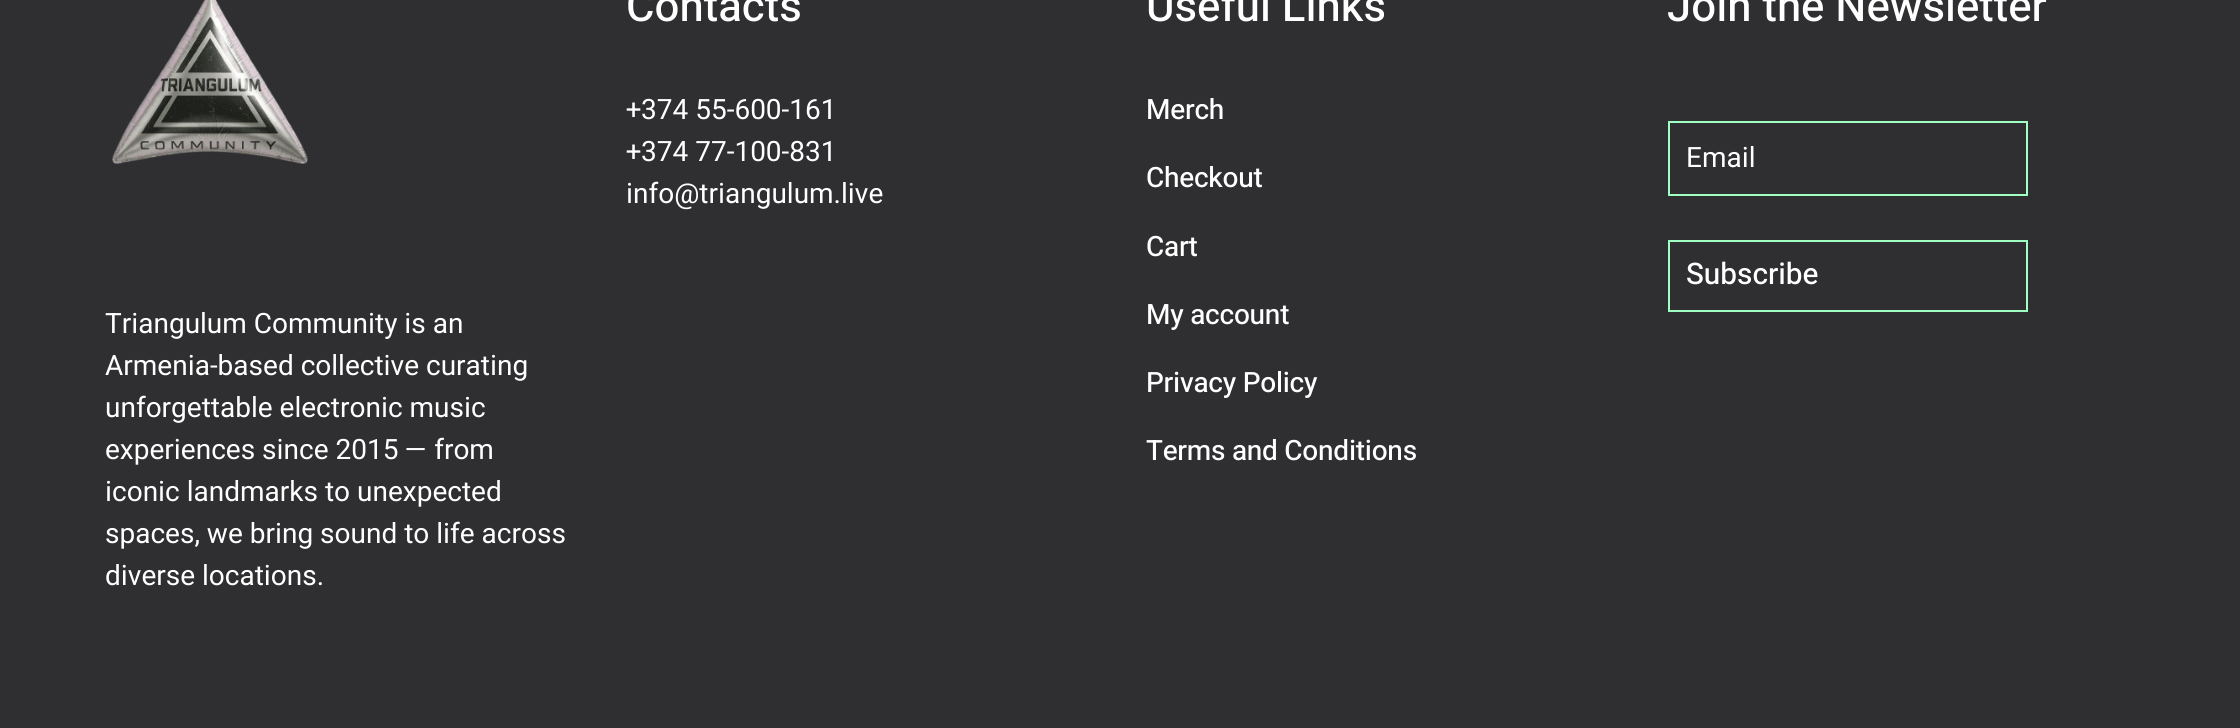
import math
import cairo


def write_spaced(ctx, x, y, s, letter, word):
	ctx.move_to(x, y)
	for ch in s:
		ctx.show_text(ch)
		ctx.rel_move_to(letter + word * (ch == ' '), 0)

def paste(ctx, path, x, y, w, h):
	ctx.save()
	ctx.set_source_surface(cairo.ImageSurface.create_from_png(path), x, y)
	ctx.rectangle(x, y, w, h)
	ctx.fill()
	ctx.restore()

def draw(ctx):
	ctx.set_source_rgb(0.184, 0.18, 0.188)
	ctx.paint()
	ctx.select_font_face('Heebo Medium')
	ctx.set_font_size(43.75)
	ctx.set_source_rgb(1, 1, 1)
	ctx.move_to(626, 21)
	ctx.show_text('Contacts')
	ctx.select_font_face('Heebo')
	ctx.set_font_size(28)
	for x, y, s in [
		(626, 119, '+374 55-600-161'),
		(626, 161, '+374 77-100-831'),
		(626, 203, 'info@triangulum.live'),
	]:
		ctx.move_to(x, y)
		ctx.show_text(s)
	ctx.select_font_face('Heebo Medium')
	ctx.set_font_size(43.75)
	ctx.move_to(1146, 21)
	ctx.show_text('Useful Links')
	ctx.set_font_size(28)
	for x, y, s in [
		(1146, 119, 'Merch'),
		(1146, 187, 'Checkout'),
		(1146, 256, 'Cart'),
		(1146, 324, 'My account'),
		(1146, 392, 'Privacy Policy'),
		(1146, 460, 'Terms and Conditions'),
	]:
		write_spaced(ctx, x, y, s, -0.25, 0)
	ctx.set_font_size(43.75)
	ctx.move_to(1667, 21)
	ctx.show_text('Join the Newsletter')
	ctx.rectangle(1669, 122, 358, 73)
	ctx.set_source_rgb(0.627, 1, 0.761)
	ctx.stroke()
	ctx.select_font_face('Heebo')
	ctx.set_font_size(28)
	ctx.set_source_rgb(1, 1, 1)
	ctx.move_to(1686, 167)
	ctx.show_text('Email')
	ctx.rectangle(1669, 241, 358, 70)
	ctx.set_source_rgb(0.627, 1, 0.761)
	ctx.stroke()
	ctx.select_font_face('Heebo Medium')
	ctx.set_font_size(29.75)
	ctx.set_source_rgb(1, 1, 1)
	ctx.move_to(1686, 284)
	ctx.show_text('Subscribe')
	paste(ctx, 'media/1.png', 112, 0, 196, 164)
	ctx.select_font_face('Heebo')
	ctx.set_font_size(28)
	for x, y, s in [
		(105, 333, 'Triangulum Community is an'),
		(105, 375, 'Armenia-based collective curating'),
		(105, 417, 'unforgettable electronic music'),
		(105, 459, 'experiences since 2015 — from'),
		(105, 501, 'iconic landmarks to unexpected'),
		(105, 543, 'spaces, we bring sound to life across'),
		(105, 585, 'diverse locations.'),
	]:
		ctx.move_to(x, y)
		ctx.show_text(s)


surface = cairo.ImageSurface(cairo.FORMAT_RGB24, 2240, 728)
ctx = cairo.Context(surface)
options = cairo.FontOptions()
options.set_hint_metrics(cairo.HINT_METRICS_OFF)
options.set_hint_style(cairo.HINT_STYLE_NONE)
ctx.set_font_options(options)
ctx.set_miter_limit(4)
draw(ctx)
surface.write_to_png('image.png')
